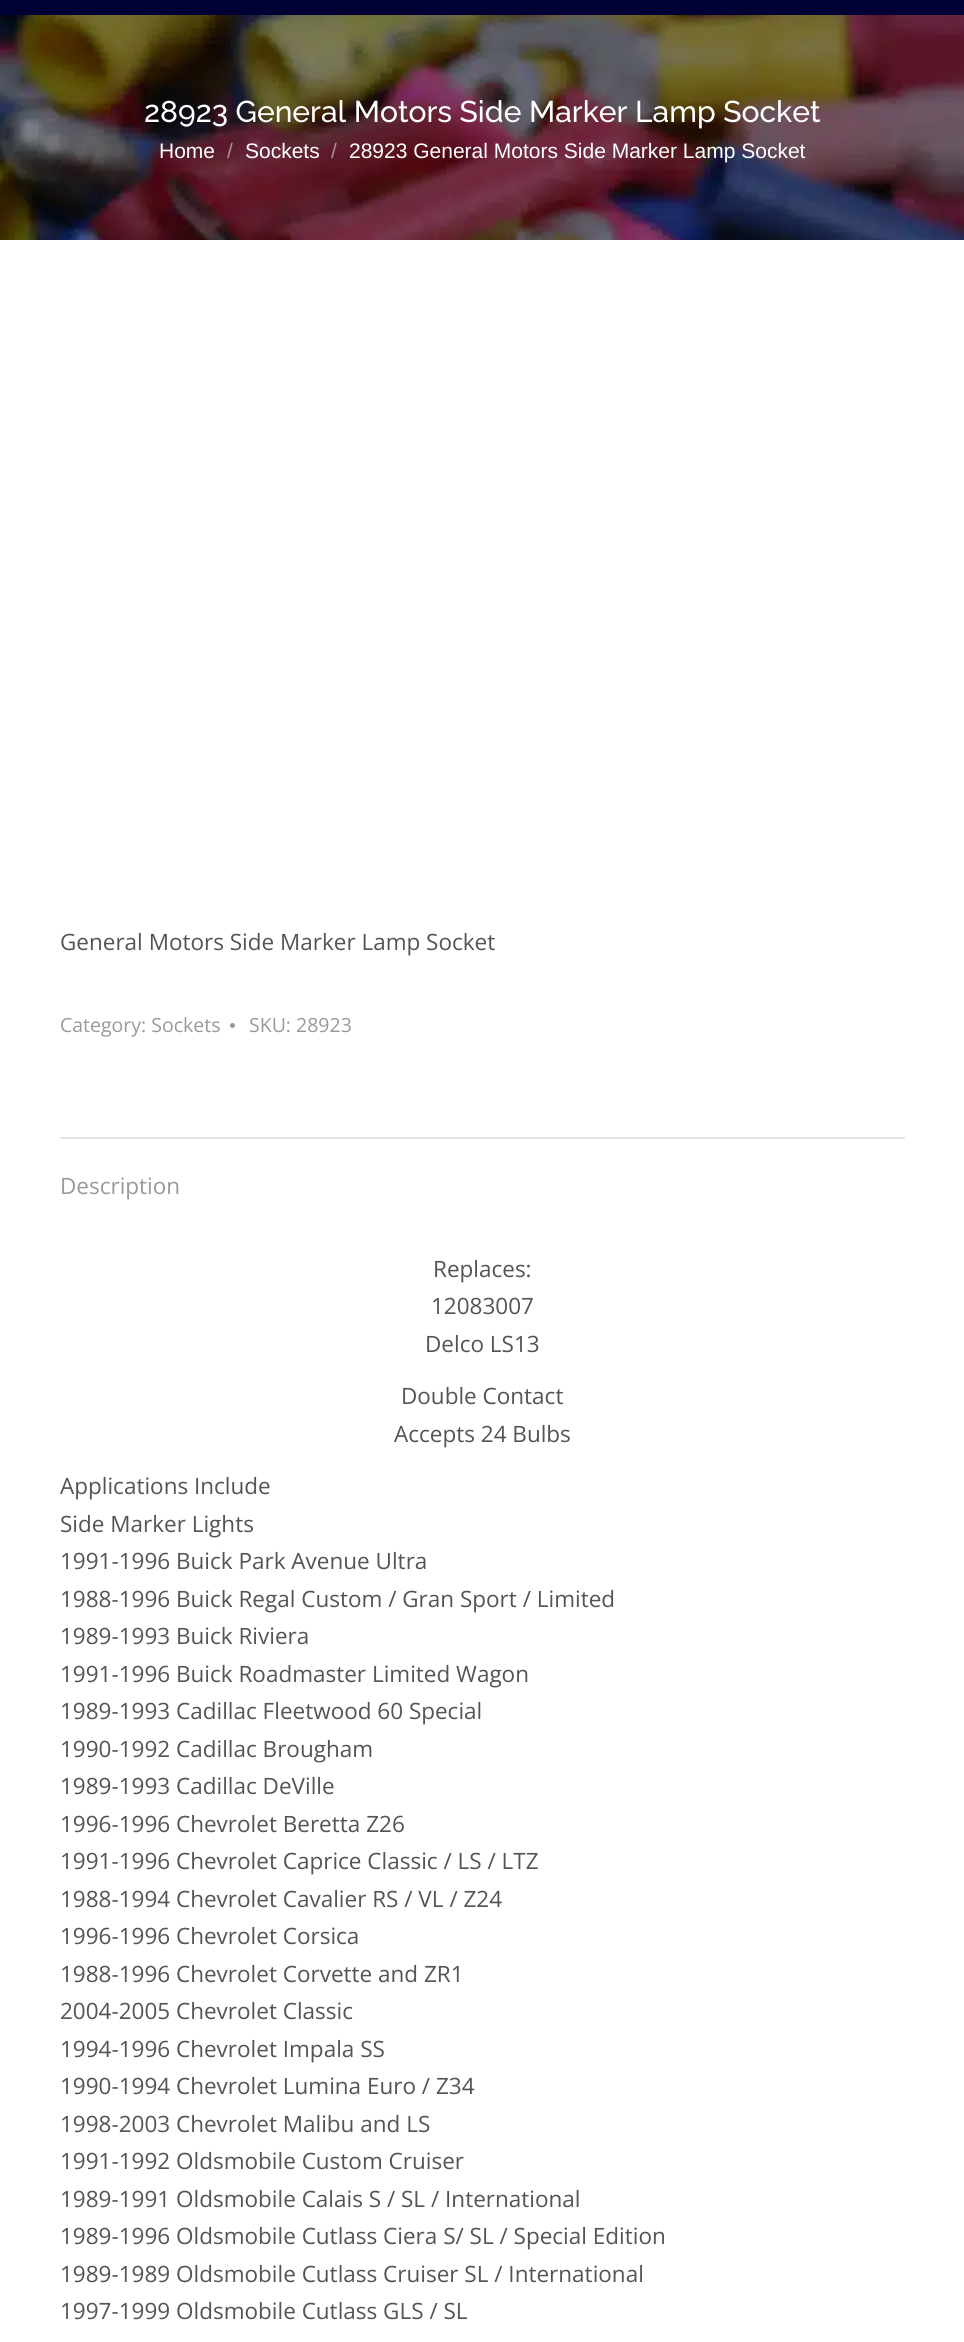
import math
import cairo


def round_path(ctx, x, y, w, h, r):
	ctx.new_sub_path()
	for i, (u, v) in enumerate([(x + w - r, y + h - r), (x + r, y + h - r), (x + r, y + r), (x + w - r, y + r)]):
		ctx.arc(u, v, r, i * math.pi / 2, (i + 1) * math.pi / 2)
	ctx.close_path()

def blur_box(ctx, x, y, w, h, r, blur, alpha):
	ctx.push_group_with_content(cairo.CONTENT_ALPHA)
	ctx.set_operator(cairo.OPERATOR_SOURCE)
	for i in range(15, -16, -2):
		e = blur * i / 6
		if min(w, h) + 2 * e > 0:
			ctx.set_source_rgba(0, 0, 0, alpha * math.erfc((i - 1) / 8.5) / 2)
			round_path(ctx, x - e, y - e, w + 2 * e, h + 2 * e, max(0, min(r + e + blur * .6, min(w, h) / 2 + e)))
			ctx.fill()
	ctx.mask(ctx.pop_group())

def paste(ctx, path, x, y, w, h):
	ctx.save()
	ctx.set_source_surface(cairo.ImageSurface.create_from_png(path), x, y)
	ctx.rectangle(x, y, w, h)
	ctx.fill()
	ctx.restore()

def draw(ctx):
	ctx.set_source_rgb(1, 1, 1)
	ctx.paint()
	paste(ctx, 'media/1.png', 0, 15, 964, 225)
	ctx.set_source_rgb(0, 0, 0)
	blur_box(ctx, -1, -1, 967, 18, 0, 11, 0.07)
	ctx.set_source_rgb(0, 0, 0.204)
	ctx.rectangle(0, 0, 964, 15)
	ctx.fill()
	ctx.select_font_face('Raleway Medium')
	ctx.set_font_size(30)
	ctx.set_source_rgb(1, 1, 1)
	ctx.move_to(144, 122)
	ctx.show_text('28923 General Motors Side Marker Lamp Socket')
	ctx.select_font_face('Liberation Sans')
	ctx.set_font_size(21)
	ctx.move_to(159, 158)
	ctx.show_text('Home')
	ctx.set_source_rgb(0.678, 0.557, 0.588)
	ctx.move_to(227, 158)
	ctx.show_text('/')
	ctx.set_source_rgb(1, 1, 1)
	ctx.move_to(245, 158)
	ctx.show_text('Sockets')
	ctx.set_source_rgb(0.678, 0.557, 0.588)
	ctx.move_to(331, 158)
	ctx.show_text('/')
	ctx.set_source_rgb(1, 1, 1)
	ctx.move_to(349, 158)
	ctx.show_text('28923 General Motors Side Marker Lamp Socket')
	ctx.select_font_face('Open Sans')
	ctx.set_font_size(22.5)
	ctx.set_source_rgb(0.329, 0.329, 0.329)
	ctx.move_to(60, 950)
	ctx.show_text('General Motors Side Marker Lamp Socket')
	ctx.set_font_size(19.5)
	ctx.set_source_rgb(0.6, 0.6, 0.6)
	ctx.move_to(60, 1032)
	ctx.show_text('Category: Sockets')
	ctx.new_path()
	ctx.arc(232.5, 1025.5, 2.5, 0, 2 * math.pi)
	ctx.fill()
	ctx.move_to(249, 1032)
	ctx.show_text('SKU: 28923')
	ctx.set_source_rgb(0.902, 0.902, 0.902)
	ctx.rectangle(60, 1137, 845, 2)
	ctx.fill()
	ctx.set_font_size(22.5)
	ctx.set_source_rgb(0.6, 0.6, 0.6)
	ctx.move_to(60, 1194)
	ctx.show_text('Description')
	ctx.set_source_rgb(0.329, 0.329, 0.329)
	for x, y, s in [
		(433, 1277, 'Replaces:'),
		(431, 1314, '12083007'),
		(425, 1352, 'Delco LS13'),
		(401, 1404, 'Double Contact'),
		(394, 1442, 'Accepts 24 Bulbs'),
		(60, 1494, 'Applications Include'),
		(60, 1532, 'Side Marker Lights'),
		(60, 1569, '1991-1996 Buick Park Avenue Ultra'),
		(60, 1607, '1988-1996 Buick Regal Custom / Gran Sport / Limited'),
		(60, 1644, '1989-1993 Buick Riviera'),
		(60, 1682, '1991-1996 Buick Roadmaster Limited Wagon'),
		(60, 1719, '1989-1993 Cadillac Fleetwood 60 Special'),
		(60, 1757, '1990-1992 Cadillac Brougham'),
		(60, 1794, '1989-1993 Cadillac DeVille'),
		(60, 1832, '1996-1996 Chevrolet Beretta Z26'),
		(60, 1869, '1991-1996 Chevrolet Caprice Classic / LS / LTZ'),
		(60, 1907, '1988-1994 Chevrolet Cavalier RS / VL / Z24'),
		(60, 1944, '1996-1996 Chevrolet Corsica'),
		(60, 1982, '1988-1996 Chevrolet Corvette and ZR1'),
		(60, 2019, '2004-2005 Chevrolet Classic'),
		(60, 2057, '1994-1996 Chevrolet Impala SS'),
		(60, 2094, '1990-1994 Chevrolet Lumina Euro / Z34'),
		(60, 2132, '1998-2003 Chevrolet Malibu and LS'),
		(60, 2169, '1991-1992 Oldsmobile Custom Cruiser'),
		(60, 2207, '1989-1991 Oldsmobile Calais S / SL / International'),
		(60, 2244, '1989-1996 Oldsmobile Cutlass Ciera S/ SL / Special Edition'),
		(60, 2282, '1989-1989 Oldsmobile Cutlass Cruiser SL / International'),
		(60, 2319, '1997-1999 Oldsmobile Cutlass GLS / SL'),
	]:
		ctx.move_to(x, y)
		ctx.show_text(s)


surface = cairo.ImageSurface(cairo.FORMAT_RGB24, 964, 2342)
ctx = cairo.Context(surface)
options = cairo.FontOptions()
options.set_hint_metrics(cairo.HINT_METRICS_OFF)
options.set_hint_style(cairo.HINT_STYLE_NONE)
ctx.set_font_options(options)
ctx.set_miter_limit(4)
draw(ctx)
surface.write_to_png('image.png')
